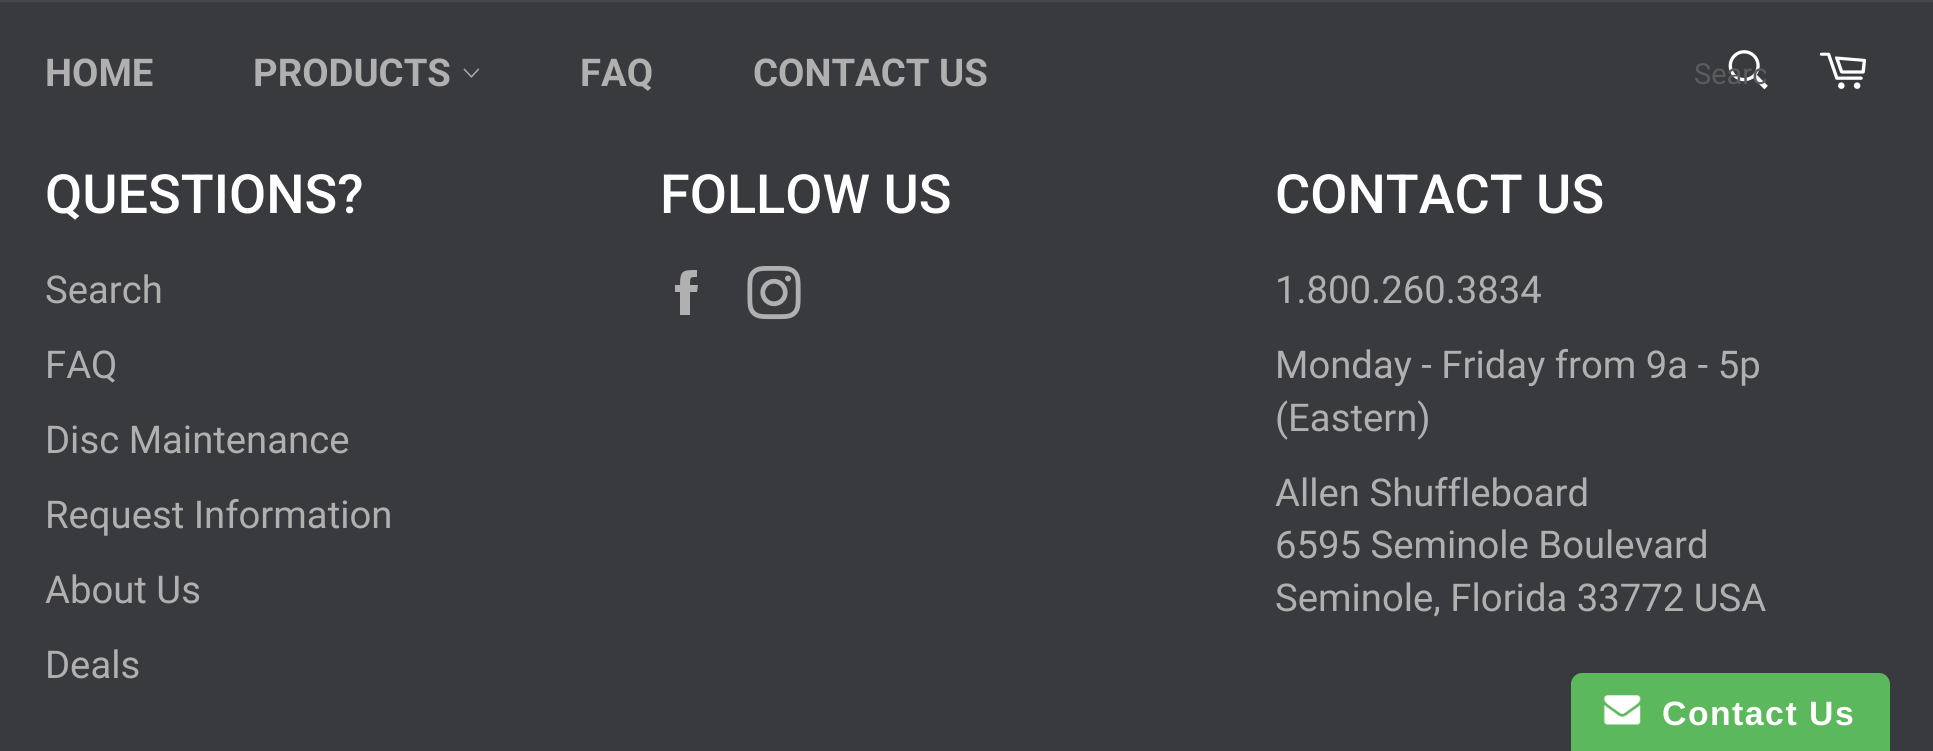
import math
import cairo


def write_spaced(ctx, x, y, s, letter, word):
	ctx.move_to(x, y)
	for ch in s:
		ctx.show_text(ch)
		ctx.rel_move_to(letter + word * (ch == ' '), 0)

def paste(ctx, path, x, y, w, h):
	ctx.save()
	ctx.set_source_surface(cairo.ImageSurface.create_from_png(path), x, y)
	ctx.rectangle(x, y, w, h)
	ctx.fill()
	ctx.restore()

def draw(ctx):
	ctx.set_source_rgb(0.224, 0.227, 0.239)
	ctx.paint()
	ctx.set_source_rgb(0.271, 0.278, 0.29)
	ctx.rectangle(0, 0, 1933, 2)
	ctx.fill()
	ctx.select_font_face('Roboto', cairo.FONT_SLANT_NORMAL, cairo.FONT_WEIGHT_BOLD)
	ctx.set_font_size(38.25)
	ctx.set_source_rgb(0.69, 0.69, 0.694)
	ctx.move_to(45, 86)
	ctx.show_text('HOME')
	ctx.move_to(253, 86)
	ctx.show_text('PRODUCTS')
	paste(ctx, 'media/1.png', 463, 68, 17, 10)
	ctx.move_to(580, 86)
	ctx.show_text('FAQ')
	ctx.move_to(753, 86)
	ctx.show_text('CONTACT US')
	paste(ctx, 'media/2.png', 1728, 50, 40, 40)
	ctx.save()
	ctx.rectangle(1694, 56, 72, 34)
	ctx.clip()
	ctx.select_font_face('Roboto')
	ctx.set_font_size(29)
	ctx.set_source_rgb(0.353, 0.357, 0.365)
	ctx.move_to(1694, 84)
	ctx.show_text('Searc')
	ctx.restore()
	paste(ctx, 'media/3.png', 1819, 52, 48, 37)
	ctx.select_font_face('Roboto Medium')
	ctx.set_font_size(54)
	ctx.set_source_rgb(1, 1, 1)
	ctx.move_to(45, 213)
	ctx.show_text('QUESTIONS?')
	ctx.select_font_face('Roboto')
	ctx.set_font_size(38.25)
	ctx.set_source_rgb(0.69, 0.69, 0.694)
	for x, y, s in [
		(45, 303, 'Search'),
		(45, 378, 'FAQ'),
		(45, 453, 'Disc Maintenance'),
		(45, 528, 'Request Information'),
		(45, 603, 'About Us'),
		(45, 678, 'Deals'),
	]:
		ctx.move_to(x, y)
		ctx.show_text(s)
	ctx.select_font_face('Roboto Medium')
	ctx.set_font_size(54)
	ctx.set_source_rgb(1, 1, 1)
	ctx.move_to(660, 213)
	ctx.show_text('FOLLOW US')
	ctx.set_source_rgb(0.69, 0.69, 0.694)
	ctx.new_path()
	ctx.move_to(690, 285)
	ctx.curve_to(690, 277, 690, 277, 697, 277)
	ctx.line_to(697, 270)
	ctx.curve_to(683, 270, 680, 270, 680, 285)
	ctx.line_to(675, 285)
	ctx.line_to(675, 292)
	ctx.line_to(680, 292)
	ctx.line_to(680, 315)
	ctx.line_to(690, 315)
	ctx.line_to(690, 292)
	ctx.line_to(697, 292)
	ctx.line_to(698, 285)
	ctx.close_path()
	ctx.fill()
	paste(ctx, 'media/4.png', 747, 266, 54, 54)
	ctx.set_source_rgb(1, 1, 1)
	ctx.move_to(1275, 213)
	ctx.show_text('CONTACT US')
	ctx.select_font_face('Roboto')
	ctx.set_font_size(38.25)
	ctx.set_source_rgb(0.69, 0.69, 0.694)
	for x, y, s in [
		(1275, 303, '1.800.260.3834'),
		(1275, 378, 'Monday - Friday from 9a - 5p'),
		(1275, 431, '(Eastern)'),
		(1275, 506, 'Allen Shuffleboard'),
		(1275, 558, '6595 Seminole Boulevard'),
		(1275, 611, 'Seminole, Florida 33772 USA'),
	]:
		ctx.move_to(x, y)
		ctx.show_text(s)
	ctx.set_source_rgb(0.361, 0.722, 0.361)
	ctx.new_path()
	ctx.move_to(1582, 673)
	ctx.line_to(1879, 673)
	ctx.curve_to(1885, 673, 1890, 678, 1890, 684)
	ctx.line_to(1890, 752)
	ctx.line_to(1571, 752)
	ctx.line_to(1571, 684)
	ctx.curve_to(1571, 678, 1576, 673, 1582, 673)
	ctx.close_path()
	ctx.fill()
	paste(ctx, 'media/5.png', 1603, 695, 38, 30)
	ctx.select_font_face('Liberation Sans', cairo.FONT_SLANT_NORMAL, cairo.FONT_WEIGHT_BOLD)
	ctx.set_font_size(33.75)
	ctx.set_source_rgb(1, 1, 1)
	write_spaced(ctx, 1662, 725, 'Contact Us', 1.5, 0)


surface = cairo.ImageSurface(cairo.FORMAT_RGB24, 1933, 751)
ctx = cairo.Context(surface)
options = cairo.FontOptions()
options.set_hint_metrics(cairo.HINT_METRICS_OFF)
options.set_hint_style(cairo.HINT_STYLE_NONE)
ctx.set_font_options(options)
ctx.set_miter_limit(4)
draw(ctx)
surface.write_to_png('image.png')
